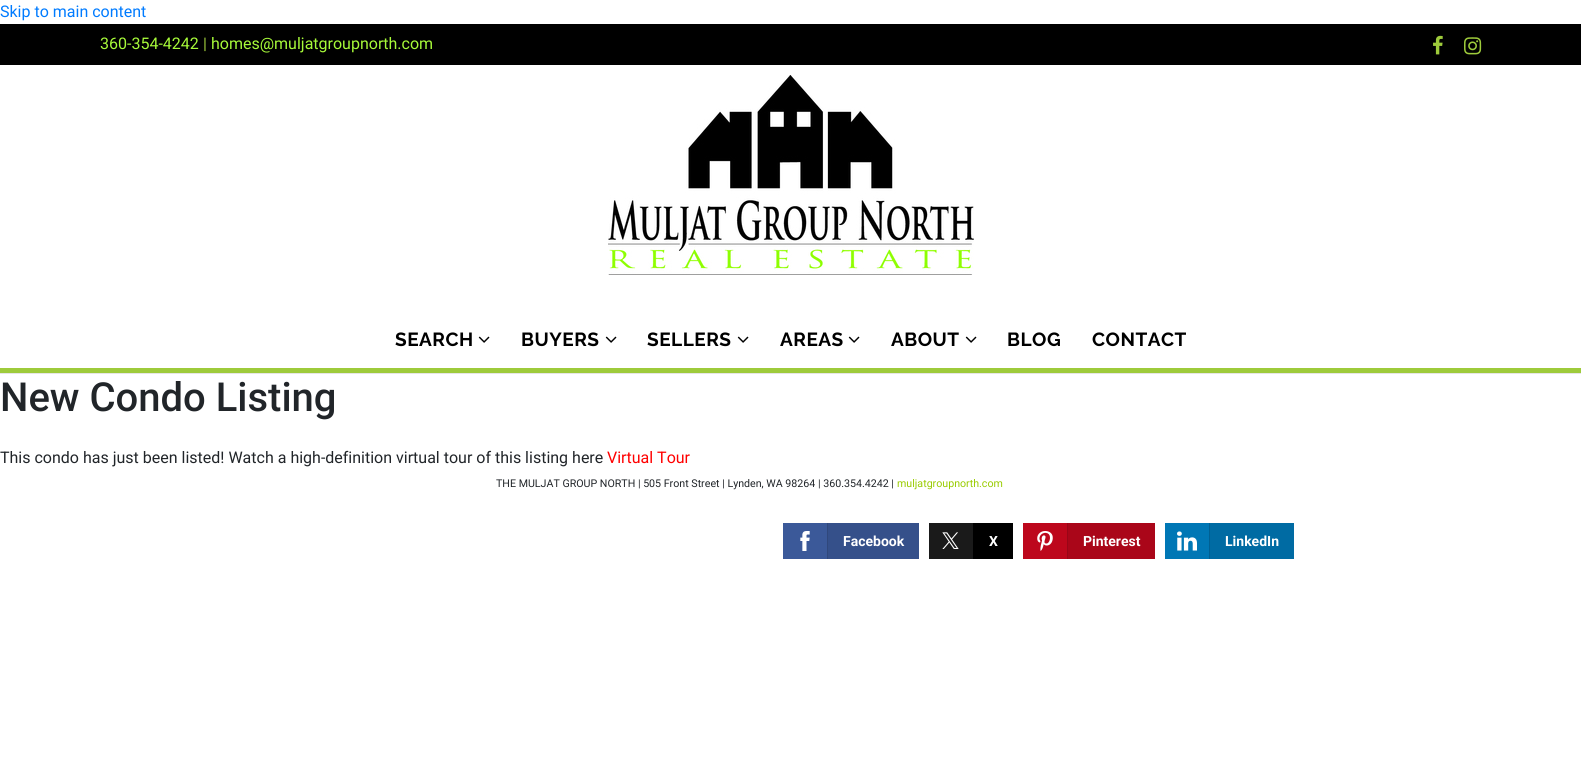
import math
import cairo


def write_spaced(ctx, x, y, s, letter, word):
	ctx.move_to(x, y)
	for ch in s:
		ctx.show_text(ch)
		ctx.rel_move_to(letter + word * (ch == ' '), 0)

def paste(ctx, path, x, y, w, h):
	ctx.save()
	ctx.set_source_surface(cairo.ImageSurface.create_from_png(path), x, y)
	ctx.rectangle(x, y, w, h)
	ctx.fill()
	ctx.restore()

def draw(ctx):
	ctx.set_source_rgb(1, 1, 1)
	ctx.paint()
	ctx.select_font_face('Roboto')
	ctx.set_font_size(16)
	ctx.set_source_rgb(0, 0.482, 1)
	ctx.move_to(0, 17)
	ctx.show_text('Skip to main content')
	ctx.set_source_rgb(0.902, 0.902, 0.902)
	ctx.rectangle(0, 373, 1581, 1)
	ctx.fill()
	ctx.set_source_rgb(0, 0, 0)
	ctx.rectangle(0, 24, 1581, 41)
	ctx.fill()
	ctx.set_source_rgb(0.655, 0.98, 0.224)
	ctx.move_to(100, 49)
	ctx.show_text('360-354-4242')
	ctx.set_source_rgb(0.62, 0.796, 0.231)
	ctx.move_to(203, 49)
	ctx.show_text('|')
	ctx.set_source_rgb(0.655, 0.98, 0.224)
	ctx.move_to(211, 49)
	ctx.show_text('homes@muljatgroupnorth.com')
	paste(ctx, 'media/1.png', 1433, 35, 10, 20)
	paste(ctx, 'media/2.png', 1464, 37, 18, 18)
	ctx.set_source_rgb(0.62, 0.796, 0.231)
	ctx.rectangle(0, 368, 1581, 5)
	ctx.fill()
	paste(ctx, 'media/3.png', 608, 75, 366, 200)
	ctx.select_font_face('Raleway', cairo.FONT_SLANT_NORMAL, cairo.FONT_WEIGHT_BOLD)
	ctx.set_font_size(19)
	ctx.set_source_rgb(0, 0, 0)
	write_spaced(ctx, 395, 346, 'SEARCH', 0.5, 0)
	paste(ctx, 'media/4.png', 478, 336, 12, 7)
	write_spaced(ctx, 521, 346, 'BUYERS', 0.5, 0)
	paste(ctx, 'media/4.png', 605, 336, 12, 7)
	write_spaced(ctx, 647, 346, 'SELLERS', 0.5, 0)
	paste(ctx, 'media/4.png', 737, 336, 12, 7)
	write_spaced(ctx, 780, 346, 'AREAS', 0.5, 0)
	paste(ctx, 'media/4.png', 848, 336, 12, 7)
	write_spaced(ctx, 891, 346, 'ABOUT', 0.5, 0)
	paste(ctx, 'media/4.png', 965, 336, 12, 7)
	write_spaced(ctx, 1007, 346, 'BLOG', 0.5, 0)
	write_spaced(ctx, 1092, 346, 'CONTACT', 0.5, 0)
	ctx.select_font_face('Roboto Medium')
	ctx.set_font_size(40)
	ctx.set_source_rgb(0.129, 0.145, 0.161)
	ctx.move_to(0, 411)
	ctx.show_text('New Condo Listing')
	ctx.select_font_face('Roboto')
	ctx.set_font_size(16)
	ctx.move_to(0, 463)
	ctx.show_text('This condo has just been listed! Watch a high-definition virtual tour of this listing here')
	ctx.set_source_rgb(1, 0, 0)
	ctx.move_to(607, 463)
	ctx.show_text('Virtual Tour')
	ctx.set_font_size(10.65)
	ctx.set_source_rgb(0.129, 0.145, 0.161)
	ctx.move_to(496, 487)
	ctx.show_text('THE MULJAT GROUP NORTH | 505 Front Street | Lynden, WA 98264 | 360.354.4242 |')
	ctx.set_source_rgb(0.6, 0.8, 0)
	ctx.move_to(897, 487)
	ctx.show_text('muljatgroupnorth.com')
	ctx.set_source_rgb(0.231, 0.349, 0.6)
	ctx.rectangle(783, 523, 44, 36)
	ctx.fill()
	paste(ctx, 'media/5.png', 800, 531, 10, 20)
	ctx.set_source_rgb(0.208, 0.314, 0.541)
	ctx.rectangle(828, 523, 91, 36)
	ctx.fill()
	ctx.set_source_rgb(0.188, 0.282, 0.486)
	ctx.rectangle(827, 523, 1, 36)
	ctx.fill()
	ctx.select_font_face('Roboto', cairo.FONT_SLANT_NORMAL, cairo.FONT_WEIGHT_BOLD)
	ctx.set_font_size(14)
	ctx.set_source_rgb(1, 1, 1)
	ctx.move_to(843, 546)
	ctx.show_text('Facebook')
	ctx.set_source_rgb(0, 0, 0)
	ctx.rectangle(973, 523, 40, 36)
	ctx.fill()
	ctx.set_source_rgb(0.102, 0.102, 0.102)
	ctx.rectangle(929, 523, 44, 36)
	ctx.fill()
	paste(ctx, 'media/6.png', 942, 532, 17, 17)
	ctx.set_source_rgb(1, 1, 1)
	ctx.move_to(989, 546)
	ctx.show_text('X')
	ctx.set_source_rgb(0.741, 0.031, 0.11)
	ctx.rectangle(1023, 523, 44, 36)
	ctx.fill()
	paste(ctx, 'media/7.png', 1037, 531, 16, 20)
	ctx.set_source_rgb(0.667, 0.027, 0.098)
	ctx.rectangle(1068, 523, 87, 36)
	ctx.fill()
	ctx.set_source_rgb(0.6, 0.024, 0.09)
	ctx.rectangle(1067, 523, 1, 36)
	ctx.fill()
	ctx.set_source_rgb(1, 1, 1)
	ctx.move_to(1083, 546)
	ctx.show_text('Pinterest')
	ctx.set_source_rgb(0, 0.467, 0.71)
	ctx.rectangle(1165, 523, 44, 36)
	ctx.fill()
	paste(ctx, 'media/8.png', 1177, 531, 20, 20)
	ctx.set_source_rgb(0, 0.42, 0.639)
	ctx.rectangle(1210, 523, 84, 36)
	ctx.fill()
	ctx.set_source_rgb(0, 0.376, 0.576)
	ctx.rectangle(1209, 523, 1, 36)
	ctx.fill()
	ctx.set_source_rgb(1, 1, 1)
	ctx.move_to(1225, 546)
	ctx.show_text('LinkedIn')


surface = cairo.ImageSurface(cairo.FORMAT_RGB24, 1581, 758)
ctx = cairo.Context(surface)
options = cairo.FontOptions()
options.set_hint_metrics(cairo.HINT_METRICS_OFF)
options.set_hint_style(cairo.HINT_STYLE_NONE)
ctx.set_font_options(options)
ctx.set_miter_limit(4)
draw(ctx)
surface.write_to_png('image.png')
